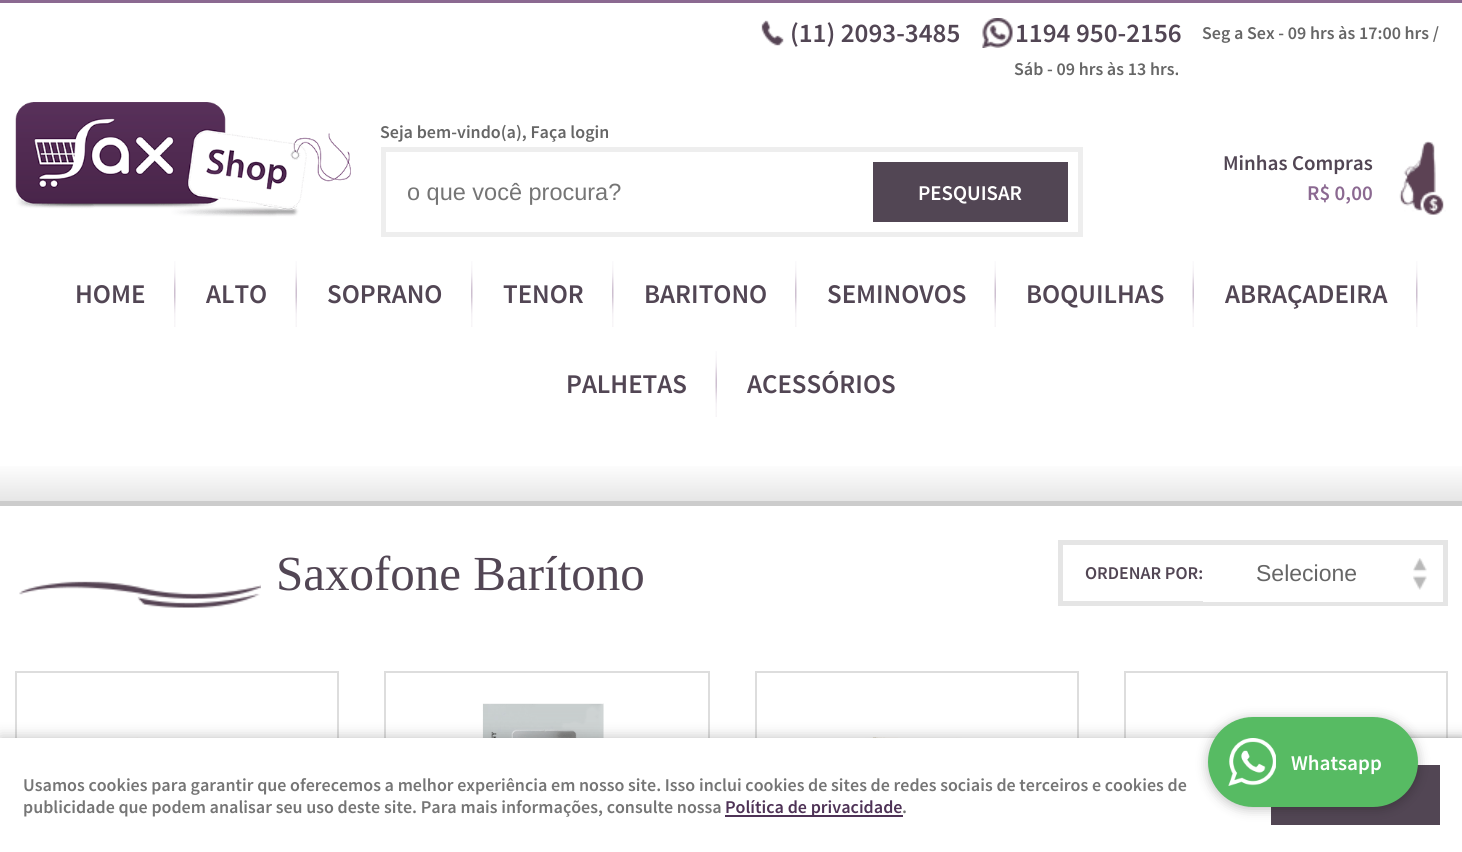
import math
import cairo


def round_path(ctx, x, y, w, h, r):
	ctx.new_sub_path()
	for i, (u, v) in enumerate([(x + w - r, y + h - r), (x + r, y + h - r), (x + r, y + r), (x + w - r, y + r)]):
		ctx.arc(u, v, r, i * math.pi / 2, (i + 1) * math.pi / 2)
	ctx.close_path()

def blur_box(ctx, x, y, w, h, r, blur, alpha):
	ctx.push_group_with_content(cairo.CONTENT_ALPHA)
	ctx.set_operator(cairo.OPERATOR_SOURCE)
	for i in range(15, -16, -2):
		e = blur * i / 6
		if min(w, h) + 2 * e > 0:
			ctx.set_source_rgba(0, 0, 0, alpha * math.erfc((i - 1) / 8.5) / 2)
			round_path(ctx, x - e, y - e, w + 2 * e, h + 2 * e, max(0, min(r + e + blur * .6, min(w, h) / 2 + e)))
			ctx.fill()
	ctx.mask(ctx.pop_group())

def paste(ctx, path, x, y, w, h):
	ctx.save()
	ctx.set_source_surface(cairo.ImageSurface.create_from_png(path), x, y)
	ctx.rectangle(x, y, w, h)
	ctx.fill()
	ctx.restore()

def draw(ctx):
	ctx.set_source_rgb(1, 1, 1)
	ctx.paint()
	ctx.set_source_rgb(0.545, 0.412, 0.569)
	ctx.rectangle(0, 0, 1462, 3)
	ctx.fill()
	paste(ctx, 'media/1.png', 761, 20, 23, 26)
	ctx.select_font_face('Source Sans Pro SemiBold')
	ctx.set_font_size(27)
	ctx.set_source_rgb(0.322, 0.275, 0.329)
	ctx.move_to(790, 42)
	ctx.show_text('(11) 2093-3485')
	paste(ctx, 'media/2.png', 982, 18, 31, 30)
	ctx.move_to(1015, 42)
	ctx.show_text('1194 950-2156')
	ctx.set_font_size(18)
	ctx.set_source_rgb(0.4, 0.4, 0.4)
	ctx.move_to(1202, 39)
	ctx.show_text('Seg a Sex - 09 hrs às 17:00 hrs /')
	ctx.move_to(1014, 75)
	ctx.show_text('Sáb - 09 hrs às 13 hrs.')
	paste(ctx, 'media/3.png', 15, 102, 336, 115)
	ctx.move_to(380, 138)
	ctx.show_text('Seja bem-vindo(a), Faça login')
	ctx.rectangle(383.5, 149.5, 697, 85)
	ctx.set_source_rgb(0.933, 0.933, 0.933)
	ctx.set_line_width(5)
	ctx.stroke()
	ctx.select_font_face('Liberation Sans')
	ctx.set_font_size(23.5)
	ctx.set_source_rgb(0.459, 0.459, 0.459)
	ctx.move_to(407, 200)
	ctx.show_text('o que você procura?')
	ctx.set_source_rgb(0.322, 0.275, 0.329)
	ctx.rectangle(873, 162, 195, 60)
	ctx.fill()
	ctx.select_font_face('Source Sans Pro SemiBold')
	ctx.set_font_size(21)
	ctx.set_source_rgb(1, 1, 1)
	ctx.move_to(918, 200)
	ctx.show_text('PESQUISAR')
	ctx.set_source_rgb(0.322, 0.275, 0.329)
	ctx.move_to(1223, 170)
	ctx.show_text('Minhas Compras')
	paste(ctx, 'media/4.png', 1399, 141, 47, 74)
	ctx.set_source_rgb(0.545, 0.412, 0.569)
	ctx.move_to(1307, 200)
	ctx.show_text('R$ 0,00')
	paste(ctx, 'media/5.png', 174, 261, 2, 66)
	ctx.set_font_size(27)
	ctx.set_source_rgb(0.322, 0.275, 0.329)
	ctx.move_to(75, 303)
	ctx.show_text('HOME')
	paste(ctx, 'media/6.png', 295, 261, 2, 66)
	ctx.move_to(206, 303)
	ctx.show_text('ALTO')
	paste(ctx, 'media/5.png', 471, 261, 2, 66)
	ctx.move_to(327, 303)
	ctx.show_text('SOPRANO')
	paste(ctx, 'media/5.png', 612, 261, 2, 66)
	ctx.move_to(503, 303)
	ctx.show_text('TENOR')
	paste(ctx, 'media/5.png', 795, 261, 2, 66)
	ctx.move_to(644, 303)
	ctx.show_text('BARITONO')
	paste(ctx, 'media/6.png', 994, 261, 2, 66)
	ctx.move_to(827, 303)
	ctx.show_text('SEMINOVOS')
	paste(ctx, 'media/6.png', 1192, 261, 2, 66)
	ctx.move_to(1026, 303)
	ctx.show_text('BOQUILHAS')
	paste(ctx, 'media/5.png', 1416, 261, 2, 66)
	ctx.move_to(1225, 303)
	ctx.show_text('ABRAÇADEIRA')
	paste(ctx, 'media/6.png', 715, 351, 2, 66)
	ctx.move_to(566, 393)
	ctx.show_text('PALHETAS')
	ctx.move_to(747, 393)
	ctx.show_text('ACESSÓRIOS')
	gradient = cairo.LinearGradient(731, 462, 731, 501)
	gradient.add_color_stop_rgba(0, 1, 1, 1, 1)
	gradient.add_color_stop_rgba(1, 0.902, 0.902, 0.902, 1)
	ctx.set_source(gradient)
	ctx.rectangle(0, 466, 1462, 35)
	ctx.fill()
	ctx.set_source_rgb(0.8, 0.8, 0.8)
	ctx.rectangle(0, 501, 1462, 5)
	ctx.fill()
	ctx.select_font_face('Liberation Serif')
	ctx.set_font_size(49)
	ctx.set_source_rgb(0.322, 0.275, 0.329)
	ctx.move_to(276, 590)
	ctx.show_text('Saxofone Barítono')
	paste(ctx, 'media/7.png', 19, 581, 242, 27)
	ctx.rectangle(1060.5, 542.5, 385, 61)
	ctx.set_source_rgb(0.898, 0.898, 0.898)
	ctx.stroke()
	ctx.select_font_face('Source Sans Pro SemiBold')
	ctx.set_font_size(18)
	ctx.set_source_rgb(0.322, 0.275, 0.329)
	ctx.move_to(1085, 579)
	ctx.show_text('ORDENAR POR:')
	ctx.set_source_rgb(1, 1, 1)
	ctx.rectangle(1203, 601, 240, 1)
	ctx.fill()
	ctx.select_font_face('Liberation Sans')
	ctx.set_font_size(23)
	ctx.set_source_rgb(0.4, 0.4, 0.4)
	ctx.move_to(1256, 581)
	ctx.show_text('Selecione')
	paste(ctx, 'media/8.png', 1413, 558, 14, 32)
	ctx.rectangle(16, 672, 322, 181)
	ctx.set_source_rgb(0.867, 0.867, 0.867)
	ctx.set_line_width(2)
	ctx.stroke()
	paste(ctx, 'media/9.png', 120, 737, 110, 1)
	ctx.rectangle(385, 672, 324, 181)
	ctx.stroke()
	paste(ctx, 'media/10.png', 482, 703, 122, 35)
	ctx.rectangle(756, 672, 322, 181)
	ctx.stroke()
	paste(ctx, 'media/11.png', 865, 737, 97, 1)
	ctx.rectangle(1125, 672, 322, 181)
	ctx.stroke()
	ctx.set_source_rgb(0.502, 0.502, 0.502)
	blur_box(ctx, 1358, 741, 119, 90, 3, 4, 1)
	ctx.set_source_rgb(0, 0, 0)
	blur_box(ctx, 0, 738, 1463, 114, 0, 7.5, 0.25)
	ctx.set_source_rgb(1, 1, 1)
	ctx.rectangle(0, 738, 1462, 114)
	ctx.fill()
	ctx.set_source_rgb(0.322, 0.275, 0.329)
	ctx.rectangle(1271, 765, 169, 60)
	ctx.fill()
	ctx.set_source_rgb(0, 0, 0)
	blur_box(ctx, 1208, 719, 210, 90, 45, 6, 0.25)
	ctx.set_source_rgb(0.341, 0.733, 0.388)
	round_path(ctx, 1208, 717, 210, 90, 45)
	ctx.fill()
	paste(ctx, 'media/12.png', 1228, 738, 48, 48)
	ctx.select_font_face('Source Sans Pro SemiBold')
	ctx.set_font_size(21)
	ctx.set_source_rgb(1, 1, 1)
	ctx.move_to(1291, 770)
	ctx.show_text('Whatsapp')
	ctx.set_font_size(18)
	ctx.set_source_rgb(0.459, 0.459, 0.459)
	ctx.move_to(23, 791)
	ctx.show_text('Usamos cookies para garantir que oferecemos a melhor experiência em nosso site. Isso inclui cookies de sites de redes sociais de terceiros e cookies de')
	ctx.move_to(23, 813)
	ctx.show_text('publicidade que podem analisar seu uso deste site. Para mais informações, consulte nossa')
	ctx.set_source_rgb(0.306, 0.196, 0.337)
	ctx.rectangle(725, 815, 178, 2)
	ctx.fill()
	ctx.move_to(725, 813)
	ctx.show_text('Política de privacidade')
	ctx.set_source_rgb(0.459, 0.459, 0.459)
	ctx.move_to(902, 813)
	ctx.show_text('.')


surface = cairo.ImageSurface(cairo.FORMAT_RGB24, 1462, 852)
ctx = cairo.Context(surface)
options = cairo.FontOptions()
options.set_hint_metrics(cairo.HINT_METRICS_OFF)
options.set_hint_style(cairo.HINT_STYLE_NONE)
ctx.set_font_options(options)
ctx.set_miter_limit(4)
draw(ctx)
surface.write_to_png('image.png')
